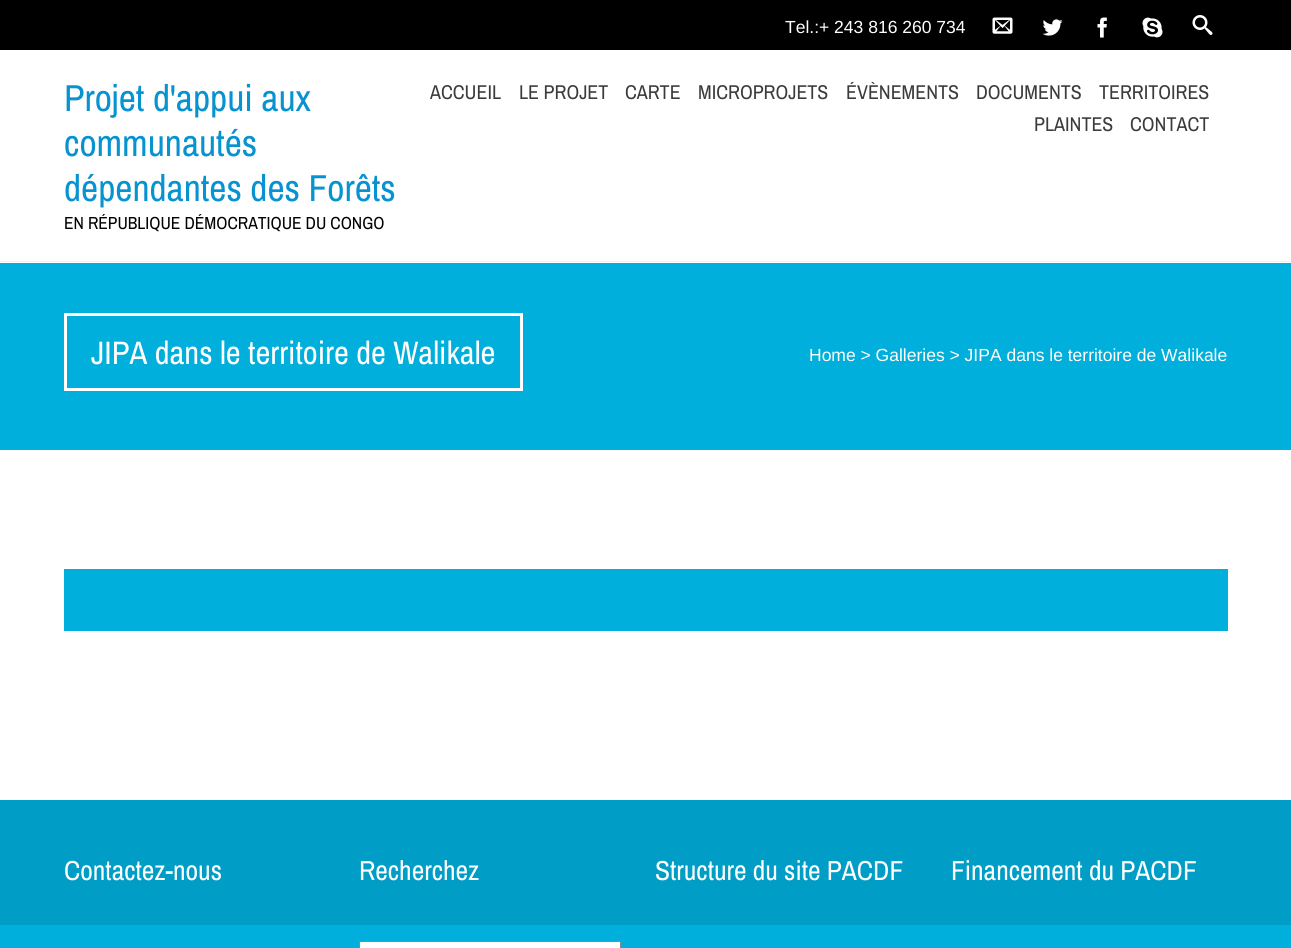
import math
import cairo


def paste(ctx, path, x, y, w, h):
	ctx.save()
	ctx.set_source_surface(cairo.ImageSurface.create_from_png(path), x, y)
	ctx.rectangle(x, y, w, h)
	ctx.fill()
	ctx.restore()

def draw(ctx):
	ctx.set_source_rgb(1, 1, 1)
	ctx.paint()
	ctx.set_source_rgb(0, 0, 0)
	ctx.rectangle(0, 0, 1291, 50)
	ctx.fill()
	ctx.select_font_face('Arimo')
	ctx.set_font_size(17.5)
	ctx.set_source_rgb(1, 1, 1)
	ctx.move_to(785, 33)
	ctx.show_text('Tel.:+ 243 816 260 734')
	paste(ctx, 'media/1.png', 992, 17, 21, 17)
	paste(ctx, 'media/2.png', 1042, 19, 21, 17)
	paste(ctx, 'media/3.png', 1097, 17, 10, 21)
	paste(ctx, 'media/4.png', 1142, 17, 21, 21)
	paste(ctx, 'media/5.png', 1192, 15, 21, 20)
	ctx.set_source_rgb(0.953, 0.953, 0.953)
	ctx.rectangle(0, 261, 1291, 1)
	ctx.fill()
	ctx.select_font_face('Archivo Narrow')
	ctx.set_font_size(37.5)
	ctx.set_source_rgb(0.031, 0.573, 0.816)
	for x, y, s in [
		(64, 111, 'Projet d\'appui aux'),
		(64, 156, 'communautés'),
		(64, 201, 'dépendantes des Forêts'),
	]:
		ctx.move_to(x, y)
		ctx.show_text(s)
	ctx.set_font_size(17.5)
	ctx.set_source_rgb(0, 0, 0)
	ctx.move_to(64, 229)
	ctx.show_text('EN RÉPUBLIQUE DÉMOCRATIQUE DU CONGO')
	ctx.set_font_size(20)
	ctx.set_source_rgb(0.231, 0.231, 0.239)
	for x, y, s in [
		(430, 99, 'ACCUEIL'),
		(519, 99, 'LE PROJET'),
		(625, 99, 'CARTE'),
		(698, 99, 'MICROPROJETS'),
		(846, 99, 'ÉVÈNEMENTS'),
		(976, 99, 'DOCUMENTS'),
		(1099, 99, 'TERRITOIRES'),
		(1034, 131, 'PLAINTES'),
		(1130, 131, 'CONTACT'),
	]:
		ctx.move_to(x, y)
		ctx.show_text(s)
	ctx.set_source_rgb(0, 0.686, 0.859)
	ctx.rectangle(0, 263, 1291, 187)
	ctx.fill()
	ctx.rectangle(65.5, 314.5, 456, 75)
	ctx.set_source_rgb(1, 1, 1)
	ctx.set_line_width(3)
	ctx.stroke()
	ctx.set_font_size(32.5)
	ctx.move_to(91, 364)
	ctx.show_text('JIPA dans le territoire de Walikale')
	ctx.select_font_face('Arimo')
	ctx.set_font_size(17.5)
	ctx.move_to(809, 361)
	ctx.show_text('Home > Galleries > JIPA dans le territoire de Walikale')
	ctx.set_source_rgb(0, 0.686, 0.859)
	ctx.rectangle(64, 569, 1164, 62)
	ctx.rectangle(0, 925, 1291, 23)
	ctx.fill()
	ctx.set_source_rgb(0, 0.62, 0.776)
	ctx.rectangle(0, 800, 1291, 125)
	ctx.fill()
	ctx.select_font_face('Archivo Narrow')
	ctx.set_font_size(27.5)
	ctx.set_source_rgb(1, 1, 1)
	ctx.move_to(64, 880)
	ctx.show_text('Contactez-nous')
	ctx.move_to(359, 880)
	ctx.show_text('Recherchez')
	ctx.rectangle(359.5, 941.5, 261, 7)
	ctx.fill_preserve()
	ctx.set_source_rgb(0.533, 0.533, 0.533)
	ctx.set_line_width(1)
	ctx.stroke()
	ctx.set_source_rgb(1, 1, 1)
	ctx.move_to(655, 880)
	ctx.show_text('Structure du site PACDF')
	ctx.move_to(951, 880)
	ctx.show_text('Financement du PACDF')


surface = cairo.ImageSurface(cairo.FORMAT_RGB24, 1291, 948)
ctx = cairo.Context(surface)
options = cairo.FontOptions()
options.set_hint_metrics(cairo.HINT_METRICS_OFF)
options.set_hint_style(cairo.HINT_STYLE_NONE)
ctx.set_font_options(options)
ctx.set_miter_limit(4)
draw(ctx)
surface.write_to_png('image.png')
